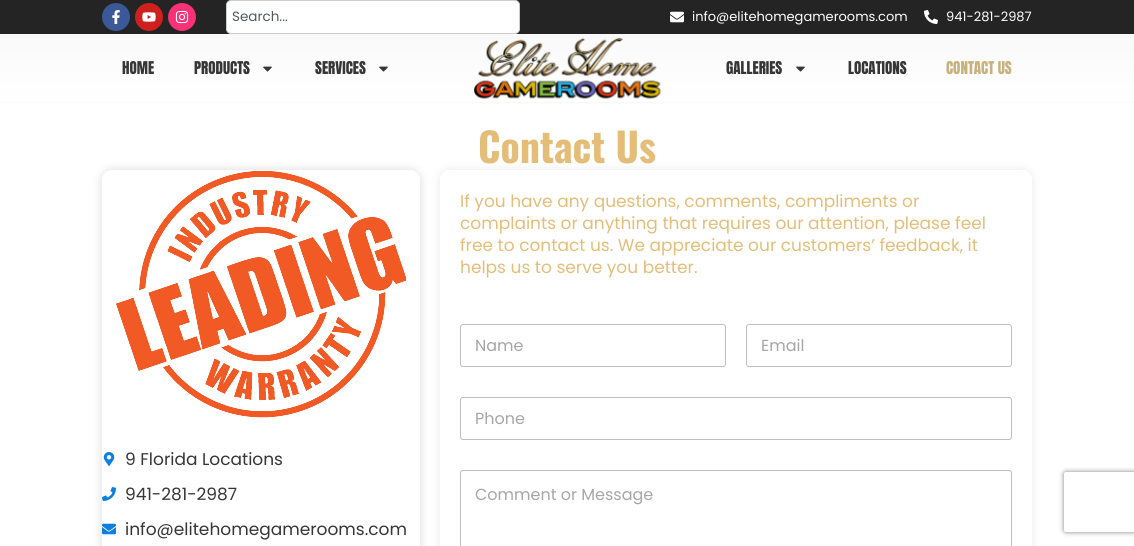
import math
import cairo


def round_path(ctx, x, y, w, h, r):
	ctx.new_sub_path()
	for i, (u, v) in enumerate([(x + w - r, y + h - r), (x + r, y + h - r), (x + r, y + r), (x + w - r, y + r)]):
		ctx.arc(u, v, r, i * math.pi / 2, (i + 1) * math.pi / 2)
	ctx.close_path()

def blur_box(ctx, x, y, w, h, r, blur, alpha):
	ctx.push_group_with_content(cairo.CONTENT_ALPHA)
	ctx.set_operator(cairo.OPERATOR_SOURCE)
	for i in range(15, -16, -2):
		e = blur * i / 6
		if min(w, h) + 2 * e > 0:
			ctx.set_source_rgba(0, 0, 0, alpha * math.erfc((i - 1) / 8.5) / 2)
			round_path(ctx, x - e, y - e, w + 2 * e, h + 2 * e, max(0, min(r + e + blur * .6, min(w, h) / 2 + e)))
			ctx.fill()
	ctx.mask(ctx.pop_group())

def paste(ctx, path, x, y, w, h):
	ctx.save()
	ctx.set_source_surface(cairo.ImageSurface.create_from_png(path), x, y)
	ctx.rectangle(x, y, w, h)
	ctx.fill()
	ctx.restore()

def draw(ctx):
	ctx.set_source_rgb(1, 1, 1)
	ctx.paint()
	ctx.set_source_rgb(0, 0, 0)
	blur_box(ctx, 0, 0, 1134, 102, 0, 1.5, 0.06)
	gradient = cairo.LinearGradient(567, 0, 567, 102)
	gradient.add_color_stop_rgba(0, 0.965, 0.965, 0.965, 1)
	gradient.add_color_stop_rgba(1, 1, 1, 1, 1)
	ctx.set_source(gradient)
	ctx.rectangle(0, 34, 1134, 68)
	ctx.fill()
	ctx.set_source_rgb(0.141, 0.141, 0.141)
	ctx.rectangle(0, 0, 1134, 34)
	ctx.fill()
	ctx.set_source_rgb(0.231, 0.349, 0.596)
	ctx.arc(116, 17, 14, 0, 2 * math.pi)
	ctx.fill()
	paste(ctx, 'media/1.png', 112, 10, 8, 14)
	ctx.set_source_rgb(0.804, 0.125, 0.122)
	ctx.arc(149, 17, 14, 0, 2 * math.pi)
	ctx.fill()
	paste(ctx, 'media/2.png', 142, 12, 14, 10)
	ctx.set_source_rgb(0.973, 0.192, 0.467)
	ctx.arc(182, 17, 14, 0, 2 * math.pi)
	ctx.fill()
	paste(ctx, 'media/3.png', 175, 10, 14, 14)
	ctx.set_source_rgb(1, 1, 1)
	round_path(ctx, 226.5, 0.5, 293, 33, 4.5)
	ctx.fill_preserve()
	ctx.set_source_rgb(0.804, 0.804, 0.804)
	ctx.set_line_width(1)
	ctx.stroke()
	ctx.select_font_face('Poppins')
	ctx.set_font_size(13.5)
	ctx.set_source_rgb(0.318, 0.349, 0.384)
	ctx.move_to(232, 21)
	ctx.show_text('Search...')
	paste(ctx, 'media/4.png', 670, 11, 14, 12)
	ctx.set_font_size(13)
	ctx.set_source_rgb(1, 1, 1)
	ctx.move_to(692, 21)
	ctx.show_text('info@elitehomegamerooms.com')
	paste(ctx, 'media/5.png', 924, 10, 14, 14)
	ctx.move_to(946, 21)
	ctx.show_text('941-281-2987')
	ctx.select_font_face('Anton')
	ctx.set_font_size(15)
	ctx.set_source_rgb(0.212, 0.212, 0.212)
	ctx.move_to(122, 74)
	ctx.show_text('HOME')
	ctx.move_to(194, 74)
	ctx.show_text('PRODUCTS')
	paste(ctx, 'media/6.png', 263, 66, 9, 6)
	ctx.move_to(315, 74)
	ctx.show_text('SERVICES')
	paste(ctx, 'media/6.png', 379, 66, 9, 6)
	paste(ctx, 'media/7.png', 474, 37, 187, 62)
	ctx.move_to(726, 74)
	ctx.show_text('GALLERIES')
	paste(ctx, 'media/6.png', 796, 66, 9, 6)
	ctx.move_to(848, 74)
	ctx.show_text('LOCATIONS')
	ctx.set_source_rgb(0.78, 0.694, 0.49)
	ctx.move_to(946, 74)
	ctx.show_text('CONTACT US')
	ctx.select_font_face('Oswald', cairo.FONT_SLANT_NORMAL, cairo.FONT_WEIGHT_BOLD)
	ctx.set_font_size(40)
	ctx.set_source_rgb(0.894, 0.745, 0.475)
	ctx.move_to(478, 163)
	ctx.show_text('Contact Us')
	ctx.save()
	ctx.set_fill_rule(cairo.FILL_RULE_EVEN_ODD)
	ctx.new_path()
	ctx.move_to(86, 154)
	ctx.line_to(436, 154)
	ctx.line_to(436, 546)
	ctx.line_to(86, 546)
	ctx.close_path()
	ctx.move_to(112, 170)
	ctx.line_to(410, 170)
	ctx.curve_to(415.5, 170, 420, 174.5, 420, 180)
	ctx.line_to(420, 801)
	ctx.curve_to(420, 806.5, 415.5, 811, 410, 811)
	ctx.line_to(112, 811)
	ctx.curve_to(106.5, 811, 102, 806.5, 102, 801)
	ctx.line_to(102, 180)
	ctx.curve_to(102, 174.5, 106.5, 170, 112, 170)
	ctx.close_path()
	ctx.clip()
	ctx.set_source_rgb(0, 0, 0)
	blur_box(ctx, 102, 170, 318, 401, 10, 5, 0.14)
	ctx.restore()
	paste(ctx, 'media/8.png', 116, 170, 290, 248)
	paste(ctx, 'media/9.png', 103, 452, 12, 14)
	ctx.select_font_face('Poppins')
	ctx.set_font_size(17)
	ctx.set_source_rgb(0.212, 0.212, 0.212)
	ctx.move_to(125, 465)
	ctx.show_text('9 Florida Locations')
	paste(ctx, 'media/10.png', 102, 487, 14, 14)
	ctx.move_to(125, 500)
	ctx.show_text('941-281-2987')
	paste(ctx, 'media/11.png', 102, 523, 14, 12)
	ctx.move_to(125, 535)
	ctx.show_text('info@elitehomegamerooms.com')
	ctx.save()
	ctx.set_fill_rule(cairo.FILL_RULE_EVEN_ODD)
	ctx.new_path()
	ctx.move_to(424, 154)
	ctx.line_to(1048, 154)
	ctx.line_to(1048, 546)
	ctx.line_to(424, 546)
	ctx.close_path()
	ctx.move_to(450, 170)
	ctx.line_to(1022, 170)
	ctx.curve_to(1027.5, 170, 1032, 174.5, 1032, 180)
	ctx.line_to(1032, 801)
	ctx.curve_to(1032, 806.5, 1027.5, 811, 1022, 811)
	ctx.line_to(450, 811)
	ctx.curve_to(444.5, 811, 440, 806.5, 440, 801)
	ctx.line_to(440, 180)
	ctx.curve_to(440, 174.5, 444.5, 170, 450, 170)
	ctx.close_path()
	ctx.clip()
	ctx.set_source_rgb(0, 0, 0)
	blur_box(ctx, 440, 170, 592, 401, 10, 5, 0.09)
	ctx.restore()
	ctx.set_source_rgb(0.894, 0.745, 0.475)
	for x, y, s in [
		(460, 207, 'If you have any questions, comments, compliments or'),
		(460, 229, 'complaints or anything that requires our attention, please feel'),
		(460, 251, 'free to contact us. We appreciate our customers’ feedback, it'),
		(460, 273, 'helps us to serve you better.'),
	]:
		ctx.move_to(x, y)
		ctx.show_text(s)
	round_path(ctx, 460.5, 324.5, 265, 42, 2.5)
	ctx.set_source_rgb(0.749, 0.749, 0.749)
	ctx.stroke()
	ctx.set_font_size(16)
	ctx.set_source_rgb(0.651, 0.651, 0.651)
	ctx.move_to(475, 351)
	ctx.show_text('Name')
	round_path(ctx, 746.5, 324.5, 265, 42, 2.5)
	ctx.set_source_rgb(0.749, 0.749, 0.749)
	ctx.stroke()
	ctx.set_source_rgb(0.651, 0.651, 0.651)
	ctx.move_to(761, 351)
	ctx.show_text('Email')
	round_path(ctx, 460.5, 397.5, 551, 42, 2.5)
	ctx.set_source_rgb(0.749, 0.749, 0.749)
	ctx.stroke()
	ctx.set_source_rgb(0.651, 0.651, 0.651)
	ctx.move_to(475, 424)
	ctx.show_text('Phone')
	round_path(ctx, 460.5, 470.5, 551, 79, 2.5)
	ctx.set_source_rgb(0.749, 0.749, 0.749)
	ctx.stroke()
	ctx.set_source_rgb(0.651, 0.651, 0.651)
	ctx.move_to(475, 500)
	ctx.show_text('Comment or Message')
	ctx.save()
	ctx.set_fill_rule(cairo.FILL_RULE_EVEN_ODD)
	ctx.new_path()
	ctx.move_to(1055, 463)
	ctx.line_to(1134, 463)
	ctx.line_to(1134, 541)
	ctx.line_to(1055, 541)
	ctx.close_path()
	ctx.move_to(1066, 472)
	ctx.line_to(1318, 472)
	ctx.curve_to(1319, 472, 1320, 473, 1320, 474)
	ctx.line_to(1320, 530)
	ctx.curve_to(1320, 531, 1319, 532, 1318, 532)
	ctx.line_to(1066, 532)
	ctx.curve_to(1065, 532, 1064, 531, 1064, 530)
	ctx.line_to(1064, 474)
	ctx.curve_to(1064, 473, 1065, 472, 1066, 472)
	ctx.close_path()
	ctx.clip()
	ctx.set_source_rgb(0.502, 0.502, 0.502)
	blur_box(ctx, 1064, 472, 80, 60, 2, 2.5, 1)
	ctx.restore()


surface = cairo.ImageSurface(cairo.FORMAT_RGB24, 1134, 546)
ctx = cairo.Context(surface)
options = cairo.FontOptions()
options.set_hint_metrics(cairo.HINT_METRICS_OFF)
options.set_hint_style(cairo.HINT_STYLE_NONE)
ctx.set_font_options(options)
ctx.set_miter_limit(4)
draw(ctx)
surface.write_to_png('image.png')
